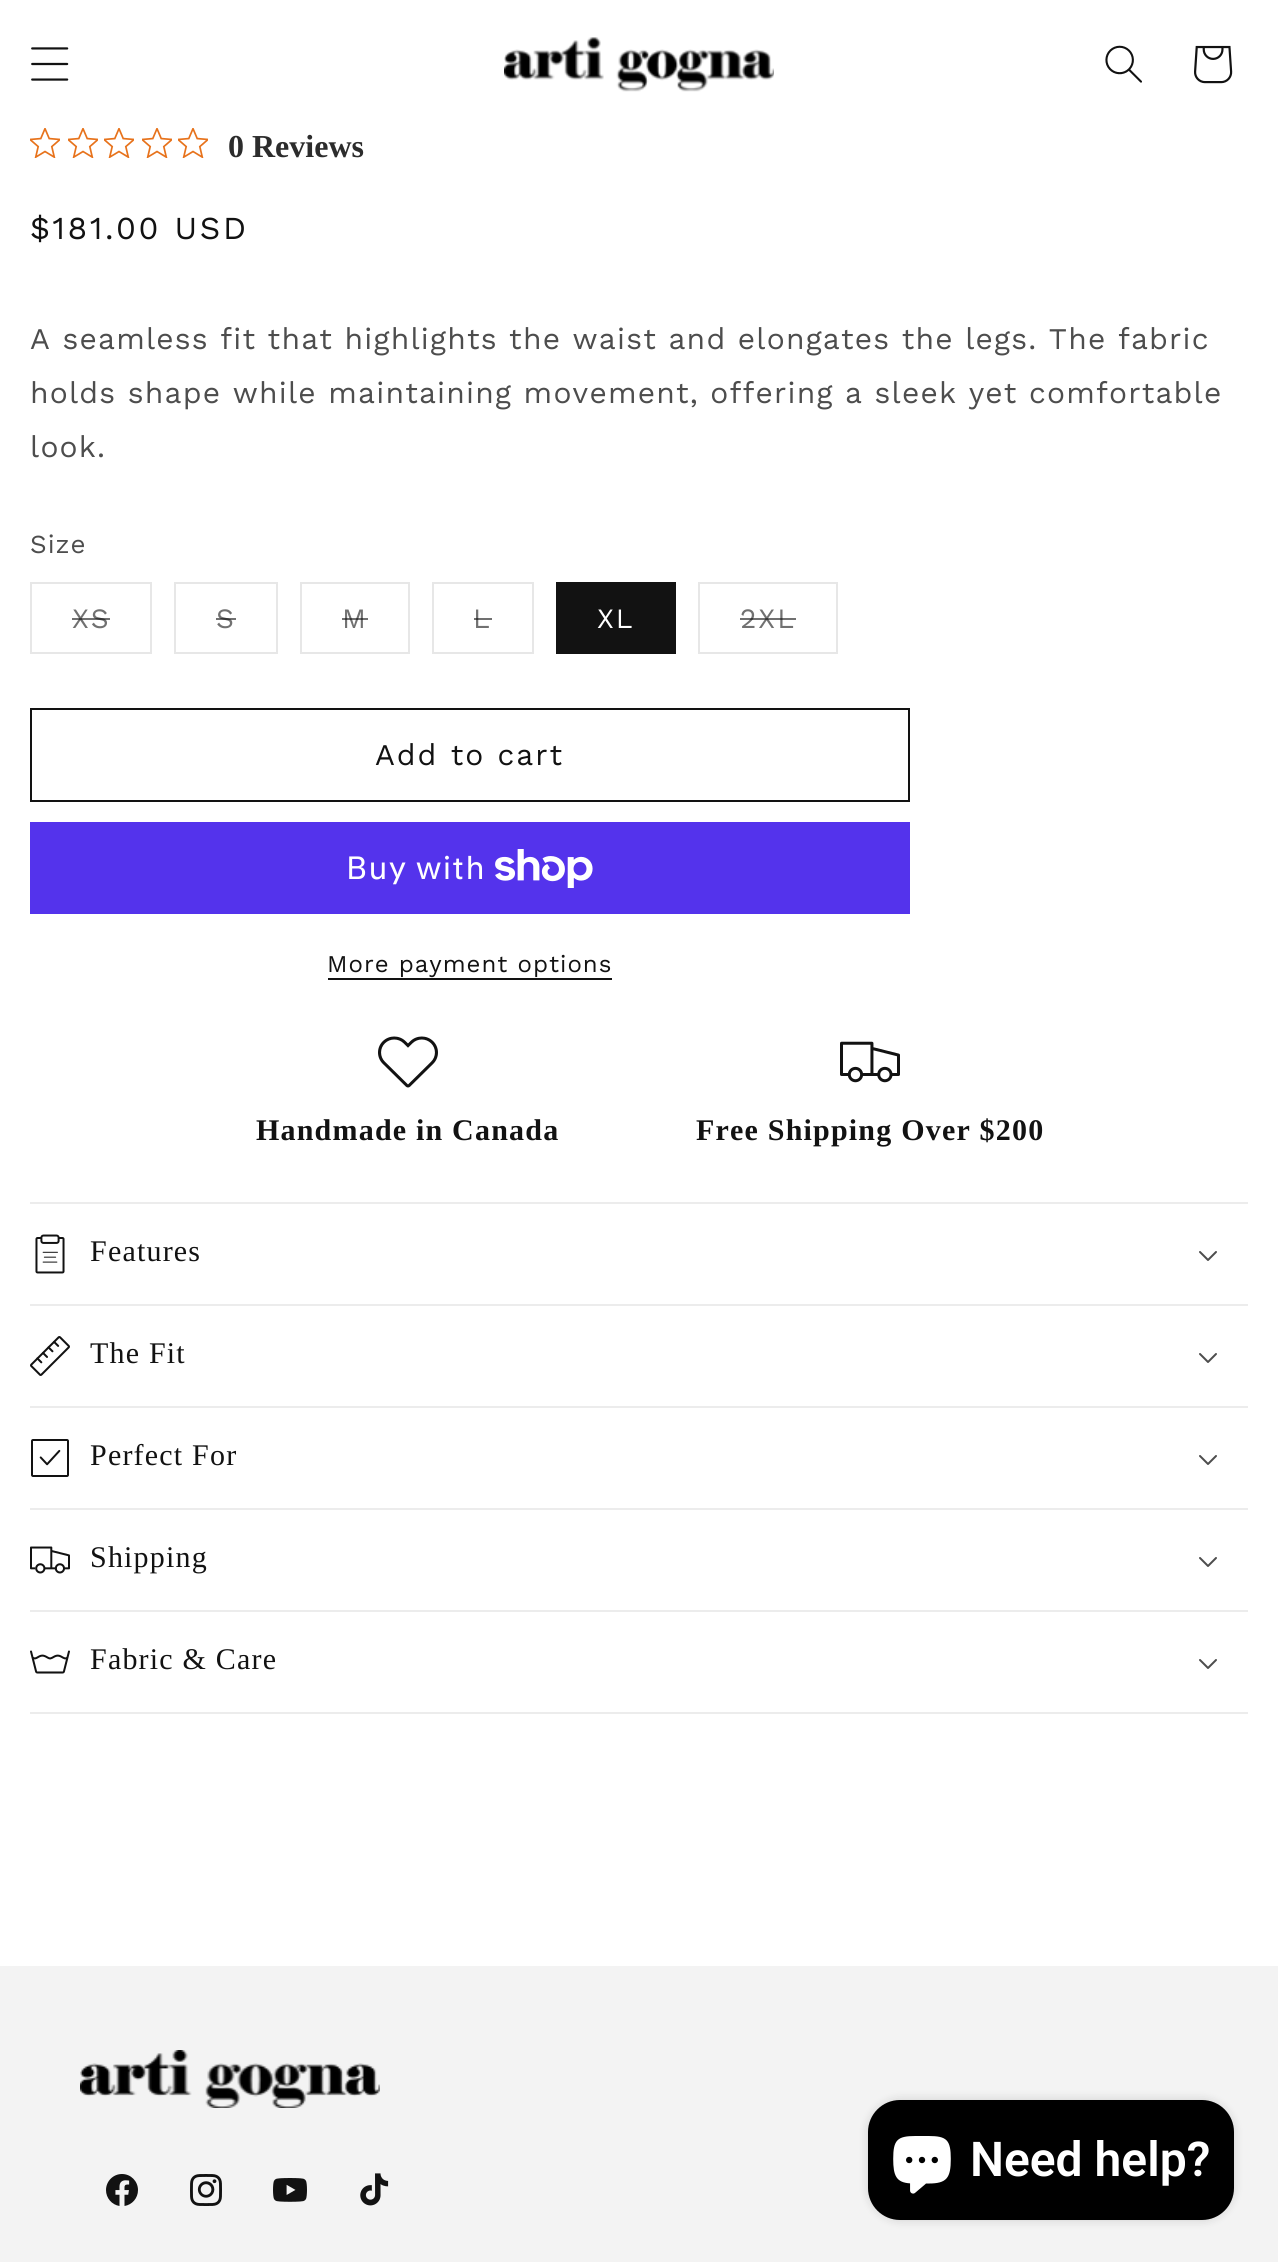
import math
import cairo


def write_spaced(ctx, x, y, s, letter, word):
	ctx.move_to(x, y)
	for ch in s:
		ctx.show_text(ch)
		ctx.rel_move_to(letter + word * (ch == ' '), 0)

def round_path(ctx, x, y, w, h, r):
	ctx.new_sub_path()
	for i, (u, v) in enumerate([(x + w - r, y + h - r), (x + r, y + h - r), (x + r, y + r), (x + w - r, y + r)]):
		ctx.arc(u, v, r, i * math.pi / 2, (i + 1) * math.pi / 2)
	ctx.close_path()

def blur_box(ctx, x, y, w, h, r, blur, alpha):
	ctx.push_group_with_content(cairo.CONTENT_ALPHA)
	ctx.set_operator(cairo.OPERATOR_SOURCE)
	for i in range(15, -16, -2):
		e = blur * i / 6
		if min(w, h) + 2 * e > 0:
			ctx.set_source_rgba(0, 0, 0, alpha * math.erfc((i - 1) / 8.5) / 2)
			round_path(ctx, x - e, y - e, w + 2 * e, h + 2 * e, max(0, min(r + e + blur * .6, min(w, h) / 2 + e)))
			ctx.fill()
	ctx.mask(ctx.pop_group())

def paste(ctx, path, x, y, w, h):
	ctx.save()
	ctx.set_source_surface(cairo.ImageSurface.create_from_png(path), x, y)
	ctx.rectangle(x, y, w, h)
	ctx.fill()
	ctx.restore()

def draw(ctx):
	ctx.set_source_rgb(1, 1, 1)
	ctx.paint()
	paste(ctx, 'media/1.png', 31, 47, 38, 34)
	paste(ctx, 'media/2.png', 504, 37, 270, 55)
	paste(ctx, 'media/3.png', 1105, 45, 37, 38)
	paste(ctx, 'media/4.png', 1194, 45, 39, 39)
	paste(ctx, 'media/5.png', 30, 128, 30, 30)
	paste(ctx, 'media/5.png', 68, 128, 30, 30)
	paste(ctx, 'media/5.png', 104, 128, 30, 30)
	paste(ctx, 'media/5.png', 142, 128, 30, 30)
	paste(ctx, 'media/5.png', 178, 128, 30, 30)
	ctx.select_font_face('Liberation Serif', cairo.FONT_SLANT_NORMAL, cairo.FONT_WEIGHT_BOLD)
	ctx.set_font_size(32)
	ctx.set_source_rgb(0.173, 0.173, 0.173)
	ctx.move_to(228, 157)
	ctx.show_text('0 Reviews')
	ctx.select_font_face('Work Sans')
	ctx.set_source_rgb(0.071, 0.071, 0.071)
	write_spaced(ctx, 30, 239, '$181.00 USD', 2.6, 0)
	ctx.set_font_size(30)
	ctx.set_source_rgb(0.302, 0.302, 0.302)
	for x, y, s in [
		(30, 349, 'A seamless fit that highlights the waist and elongates the legs. The fabric'),
		(30, 403, 'holds shape while maintaining movement, offering a sleek yet comfortable'),
		(30, 457, 'look.'),
	]:
		write_spaced(ctx, x, y, s, 1.2, 0)
	ctx.set_font_size(26)
	write_spaced(ctx, 30, 553, 'Size', 1, 0)
	ctx.rectangle(31, 583, 120, 70)
	ctx.set_source_rgb(0.906, 0.906, 0.906)
	ctx.stroke()
	ctx.set_font_size(28)
	ctx.set_source_rgb(0.443, 0.443, 0.443)
	write_spaced(ctx, 72, 628, 'XS', 2, 0)
	ctx.set_source_rgba(0.071, 0.071, 0.071, 0.6)
	ctx.rectangle(72, 618, 38, 2)
	ctx.fill()
	ctx.rectangle(175, 583, 102, 70)
	ctx.set_source_rgb(0.906, 0.906, 0.906)
	ctx.stroke()
	ctx.set_source_rgb(0.443, 0.443, 0.443)
	write_spaced(ctx, 216, 628, 'S', 2, 0)
	ctx.set_source_rgba(0.071, 0.071, 0.071, 0.6)
	ctx.rectangle(216, 618, 20, 2)
	ctx.fill()
	ctx.rectangle(301, 583, 108, 70)
	ctx.set_source_rgb(0.906, 0.906, 0.906)
	ctx.stroke()
	ctx.set_source_rgb(0.443, 0.443, 0.443)
	write_spaced(ctx, 342, 628, 'M', 2, 0)
	ctx.set_source_rgba(0.071, 0.071, 0.071, 0.6)
	ctx.rectangle(342, 618, 26, 2)
	ctx.fill()
	ctx.rectangle(433, 583, 100, 70)
	ctx.set_source_rgb(0.906, 0.906, 0.906)
	ctx.stroke()
	ctx.set_source_rgb(0.443, 0.443, 0.443)
	write_spaced(ctx, 473, 628, 'L', 2, 0)
	ctx.set_source_rgba(0.071, 0.071, 0.071, 0.6)
	ctx.rectangle(474, 618, 18, 2)
	ctx.fill()
	ctx.set_source_rgb(0.071, 0.071, 0.071)
	ctx.rectangle(556, 582, 120, 72)
	ctx.fill()
	ctx.set_source_rgb(1, 1, 1)
	write_spaced(ctx, 597, 628, 'XL', 2, 0)
	ctx.rectangle(699, 583, 138, 70)
	ctx.set_source_rgb(0.906, 0.906, 0.906)
	ctx.stroke()
	ctx.set_source_rgb(0.443, 0.443, 0.443)
	write_spaced(ctx, 740, 628, '2XL', 2, 0)
	ctx.set_source_rgba(0.071, 0.071, 0.071, 0.6)
	ctx.rectangle(740, 618, 56, 2)
	ctx.fill()
	ctx.rectangle(31, 709, 878, 92)
	ctx.set_source_rgb(0.071, 0.071, 0.071)
	ctx.stroke()
	ctx.set_font_size(30)
	write_spaced(ctx, 375, 765, 'Add to cart', 2, 0)
	ctx.set_source_rgb(0.329, 0.2, 0.922)
	ctx.rectangle(30, 822, 880, 92)
	ctx.fill()
	ctx.select_font_face('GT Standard')
	ctx.set_font_size(32)
	ctx.set_source_rgb(1, 1, 1)
	write_spaced(ctx, 346, 879, 'Buy with', 1.2, 0)
	paste(ctx, 'media/6.png', 495, 849, 98, 39)
	ctx.select_font_face('Work Sans')
	ctx.set_font_size(24)
	ctx.set_source_rgb(0.071, 0.071, 0.071)
	write_spaced(ctx, 327, 972, 'More payment options', 1, 0)
	ctx.rectangle(328, 978, 284, 2)
	ctx.fill()
	paste(ctx, 'media/7.png', 378, 1036, 60, 52)
	ctx.select_font_face('Liberation Serif', cairo.FONT_SLANT_NORMAL, cairo.FONT_WEIGHT_BOLD)
	ctx.set_font_size(30)
	write_spaced(ctx, 256, 1140, 'Handmade in Canada', 1.2, 0)
	paste(ctx, 'media/8.png', 840, 1041, 60, 42)
	write_spaced(ctx, 696, 1140, 'Free Shipping Over $200', 1.2, 0)
	ctx.set_source_rgb(0.925, 0.925, 0.925)
	ctx.rectangle(30, 1202, 1218, 2)
	ctx.fill()
	ctx.rectangle(30, 1304, 1218, 2)
	ctx.fill()
	paste(ctx, 'media/9.png', 35, 1234, 30, 40)
	ctx.select_font_face('Liberation Serif')
	ctx.set_source_rgb(0.071, 0.071, 0.071)
	write_spaced(ctx, 90, 1261, 'Features', 1.2, 0)
	paste(ctx, 'media/10.png', 1199, 1251, 18, 10)
	ctx.set_source_rgb(0.925, 0.925, 0.925)
	ctx.rectangle(30, 1406, 1218, 2)
	ctx.fill()
	paste(ctx, 'media/11.png', 30, 1336, 40, 40)
	ctx.set_source_rgb(0.071, 0.071, 0.071)
	write_spaced(ctx, 90, 1363, 'The Fit', 1.2, 0)
	paste(ctx, 'media/10.png', 1199, 1353, 18, 10)
	ctx.set_source_rgb(0.925, 0.925, 0.925)
	ctx.rectangle(30, 1508, 1218, 2)
	ctx.fill()
	paste(ctx, 'media/12.png', 31, 1439, 38, 38)
	ctx.set_source_rgb(0.071, 0.071, 0.071)
	write_spaced(ctx, 90, 1465, 'Perfect For', 1.2, 0)
	paste(ctx, 'media/10.png', 1199, 1455, 18, 10)
	ctx.set_source_rgb(0.925, 0.925, 0.925)
	ctx.rectangle(30, 1610, 1218, 2)
	ctx.fill()
	paste(ctx, 'media/13.png', 30, 1546, 40, 28)
	ctx.set_source_rgb(0.071, 0.071, 0.071)
	write_spaced(ctx, 90, 1567, 'Shipping', 1.2, 0)
	paste(ctx, 'media/10.png', 1199, 1557, 18, 10)
	ctx.set_source_rgb(0.925, 0.925, 0.925)
	ctx.rectangle(30, 1712, 1218, 2)
	ctx.fill()
	paste(ctx, 'media/14.png', 30, 1650, 40, 24)
	ctx.set_source_rgb(0.071, 0.071, 0.071)
	write_spaced(ctx, 90, 1669, 'Fabric & Care', 1.2, 0)
	paste(ctx, 'media/10.png', 1199, 1659, 18, 10)
	ctx.set_source_rgb(0.953, 0.953, 0.953)
	ctx.rectangle(0, 1966, 1278, 296)
	ctx.fill()
	paste(ctx, 'media/15.png', 80, 2050, 300, 58)
	paste(ctx, 'media/16.png', 106, 2174, 32, 32)
	paste(ctx, 'media/17.png', 190, 2174, 32, 32)
	paste(ctx, 'media/18.png', 273, 2178, 34, 24)
	paste(ctx, 'media/19.png', 360, 2173, 29, 33)
	ctx.set_source_rgb(0, 0, 0)
	blur_box(ctx, 868, 2100, 366, 120, 32, 5, 0.15)
	ctx.set_source_rgb(0, 0, 0)
	round_path(ctx, 868, 2100, 366, 120, 32)
	ctx.fill()
	paste(ctx, 'media/20.png', 893, 2136, 58, 58)
	ctx.select_font_face('Roboto SemiBold')
	ctx.set_font_size(48)
	ctx.set_source_rgb(1, 1, 1)
	ctx.move_to(970, 2176)
	ctx.show_text('Need help?')


surface = cairo.ImageSurface(cairo.FORMAT_RGB24, 1278, 2262)
ctx = cairo.Context(surface)
options = cairo.FontOptions()
options.set_hint_metrics(cairo.HINT_METRICS_OFF)
options.set_hint_style(cairo.HINT_STYLE_NONE)
ctx.set_font_options(options)
ctx.set_miter_limit(4)
draw(ctx)
surface.write_to_png('image.png')
